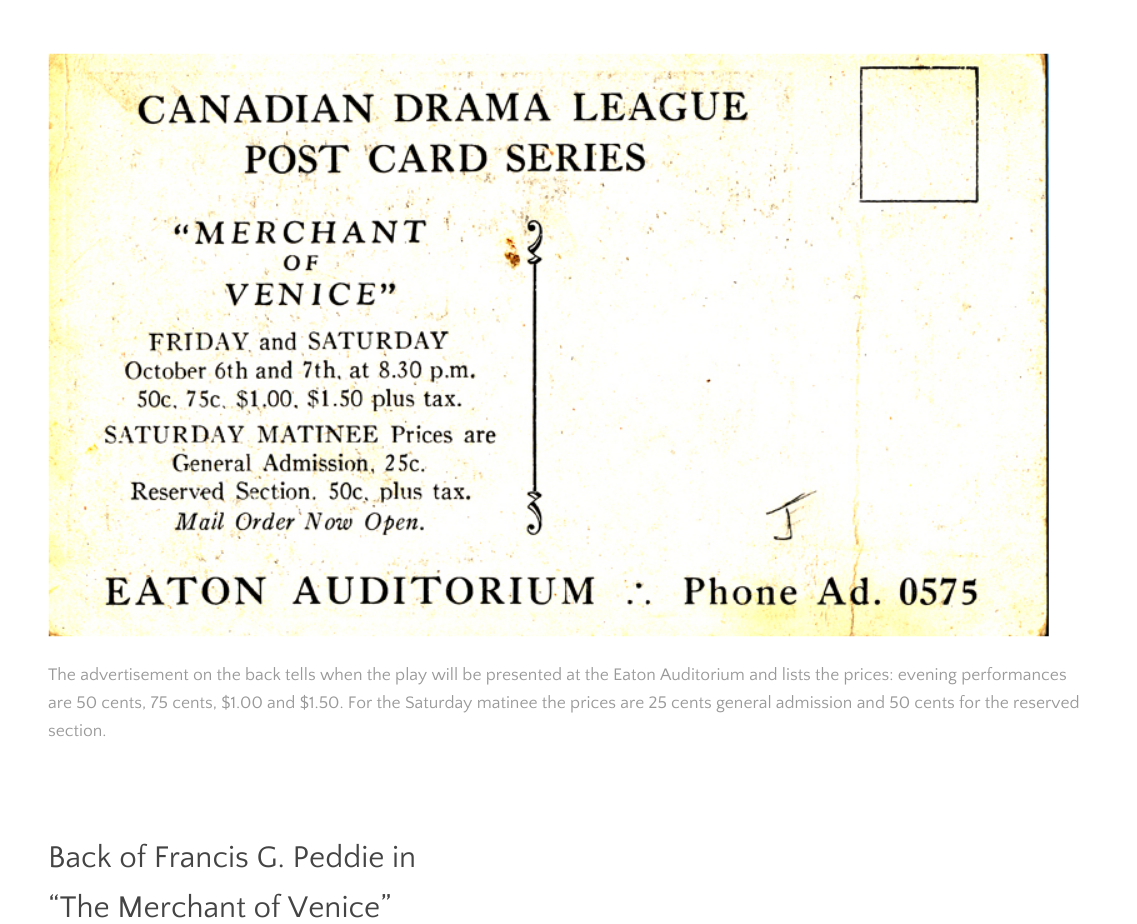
import math
import cairo


def paste(ctx, path, x, y, w, h):
	ctx.save()
	ctx.set_source_surface(cairo.ImageSurface.create_from_png(path), x, y)
	ctx.rectangle(x, y, w, h)
	ctx.fill()
	ctx.restore()

def draw(ctx):
	ctx.set_source_rgb(1, 1, 1)
	ctx.paint()
	paste(ctx, 'media/1.png', 48, 53, 1001, 584)
	ctx.select_font_face('Quattrocento Sans')
	ctx.set_font_size(17.5)
	ctx.set_source_rgb(0.6, 0.6, 0.6)
	for x, y, s in [
		(48, 680, 'The advertisement on the back tells when the play will be presented at the Eaton Auditorium and lists the prices: evening performances'),
		(48, 708, 'are 50 cents, 75 cents, $1.00 and $1.50. For the Saturday matinee the prices are 25 cents general admission and 50 cents for the reserved'),
		(48, 736, 'section.'),
	]:
		ctx.move_to(x, y)
		ctx.show_text(s)
	ctx.set_font_size(31.25)
	ctx.set_source_rgb(0.267, 0.267, 0.267)
	ctx.move_to(48, 867)
	ctx.show_text('Back of Francis G. Peddie in')
	ctx.move_to(48, 917)
	ctx.show_text('“The Merchant of Venice”')


surface = cairo.ImageSurface(cairo.FORMAT_RGB24, 1137, 924)
ctx = cairo.Context(surface)
options = cairo.FontOptions()
options.set_hint_metrics(cairo.HINT_METRICS_OFF)
options.set_hint_style(cairo.HINT_STYLE_NONE)
ctx.set_font_options(options)
ctx.set_miter_limit(4)
draw(ctx)
surface.write_to_png('image.png')
